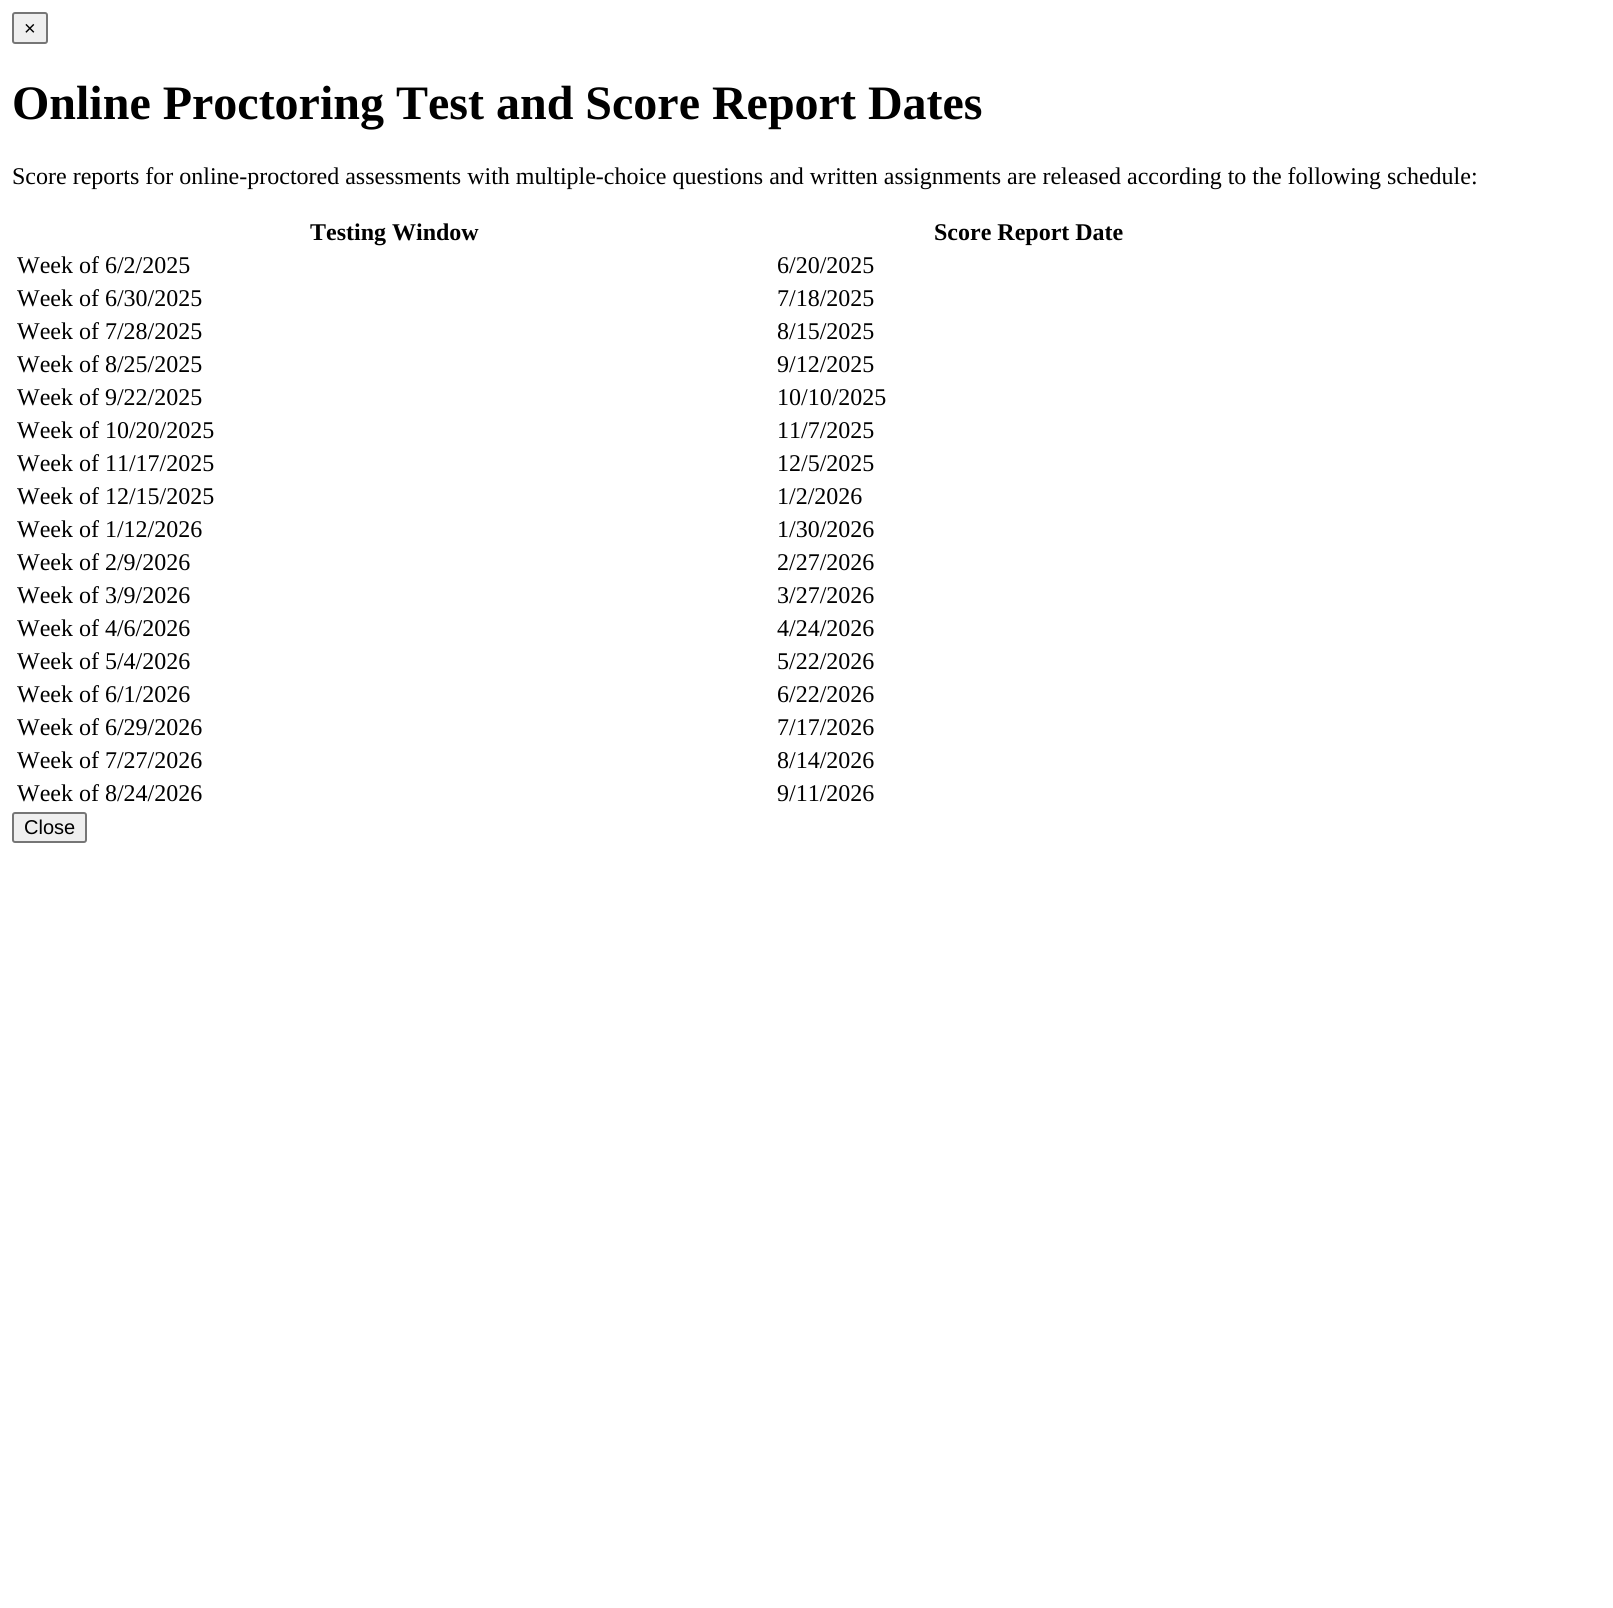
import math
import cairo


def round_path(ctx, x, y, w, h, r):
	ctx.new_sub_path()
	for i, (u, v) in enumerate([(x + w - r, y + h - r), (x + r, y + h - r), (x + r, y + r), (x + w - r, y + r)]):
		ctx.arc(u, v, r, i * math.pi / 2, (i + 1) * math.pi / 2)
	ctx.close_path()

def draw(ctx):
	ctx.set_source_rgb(1, 1, 1)
	ctx.paint()
	ctx.set_source_rgb(0.937, 0.937, 0.937)
	round_path(ctx, 13, 13, 34, 30, 2)
	ctx.fill_preserve()
	ctx.set_source_rgb(0.463, 0.463, 0.463)
	ctx.stroke()
	ctx.select_font_face('Liberation Sans')
	ctx.set_font_size(20)
	ctx.set_source_rgb(0, 0, 0)
	ctx.move_to(24, 35)
	ctx.show_text('×')
	ctx.select_font_face('Liberation Serif', cairo.FONT_SLANT_NORMAL, cairo.FONT_WEIGHT_BOLD)
	ctx.set_font_size(48)
	ctx.move_to(12, 119)
	ctx.show_text('Online Proctoring Test and Score Report Dates')
	ctx.select_font_face('Liberation Serif')
	ctx.set_font_size(24)
	ctx.move_to(12, 184)
	ctx.show_text('Score reports for online-proctored assessments with multiple-choice questions and written assignments are released according to the following schedule:')
	ctx.select_font_face('Liberation Serif', cairo.FONT_SLANT_NORMAL, cairo.FONT_WEIGHT_BOLD)
	ctx.move_to(310, 240)
	ctx.show_text('Testing Window')
	ctx.move_to(934, 240)
	ctx.show_text('Score Report Date')
	ctx.select_font_face('Liberation Serif')
	for x, y, s in [
		(17, 273, 'Week of 6/2/2025'),
		(777, 273, '6/20/2025'),
		(17, 306, 'Week of 6/30/2025'),
		(777, 306, '7/18/2025'),
		(17, 339, 'Week of 7/28/2025'),
		(777, 339, '8/15/2025'),
		(17, 372, 'Week of 8/25/2025'),
		(777, 372, '9/12/2025'),
		(17, 405, 'Week of 9/22/2025'),
		(777, 405, '10/10/2025'),
		(17, 438, 'Week of 10/20/2025'),
		(777, 438, '11/7/2025'),
		(17, 471, 'Week of 11/17/2025'),
		(777, 471, '12/5/2025'),
		(17, 504, 'Week of 12/15/2025'),
		(777, 504, '1/2/2026'),
		(17, 537, 'Week of 1/12/2026'),
		(777, 537, '1/30/2026'),
		(17, 570, 'Week of 2/9/2026'),
		(777, 570, '2/27/2026'),
		(17, 603, 'Week of 3/9/2026'),
		(777, 603, '3/27/2026'),
		(17, 636, 'Week of 4/6/2026'),
		(777, 636, '4/24/2026'),
		(17, 669, 'Week of 5/4/2026'),
		(777, 669, '5/22/2026'),
		(17, 702, 'Week of 6/1/2026'),
		(777, 702, '6/22/2026'),
		(17, 735, 'Week of 6/29/2026'),
		(777, 735, '7/17/2026'),
		(17, 768, 'Week of 7/27/2026'),
		(777, 768, '8/14/2026'),
		(17, 801, 'Week of 8/24/2026'),
		(777, 801, '9/11/2026'),
	]:
		ctx.move_to(x, y)
		ctx.show_text(s)
	ctx.set_source_rgb(0.937, 0.937, 0.937)
	round_path(ctx, 13, 813, 73, 29, 2)
	ctx.fill_preserve()
	ctx.set_source_rgb(0.463, 0.463, 0.463)
	ctx.stroke()
	ctx.select_font_face('Liberation Sans')
	ctx.set_font_size(20)
	ctx.set_source_rgb(0, 0, 0)
	ctx.move_to(24, 834)
	ctx.show_text('Close')


surface = cairo.ImageSurface(cairo.FORMAT_RGB24, 1613, 1608)
ctx = cairo.Context(surface)
options = cairo.FontOptions()
options.set_hint_metrics(cairo.HINT_METRICS_OFF)
options.set_hint_style(cairo.HINT_STYLE_NONE)
ctx.set_font_options(options)
ctx.set_miter_limit(4)
draw(ctx)
surface.write_to_png('image.png')
